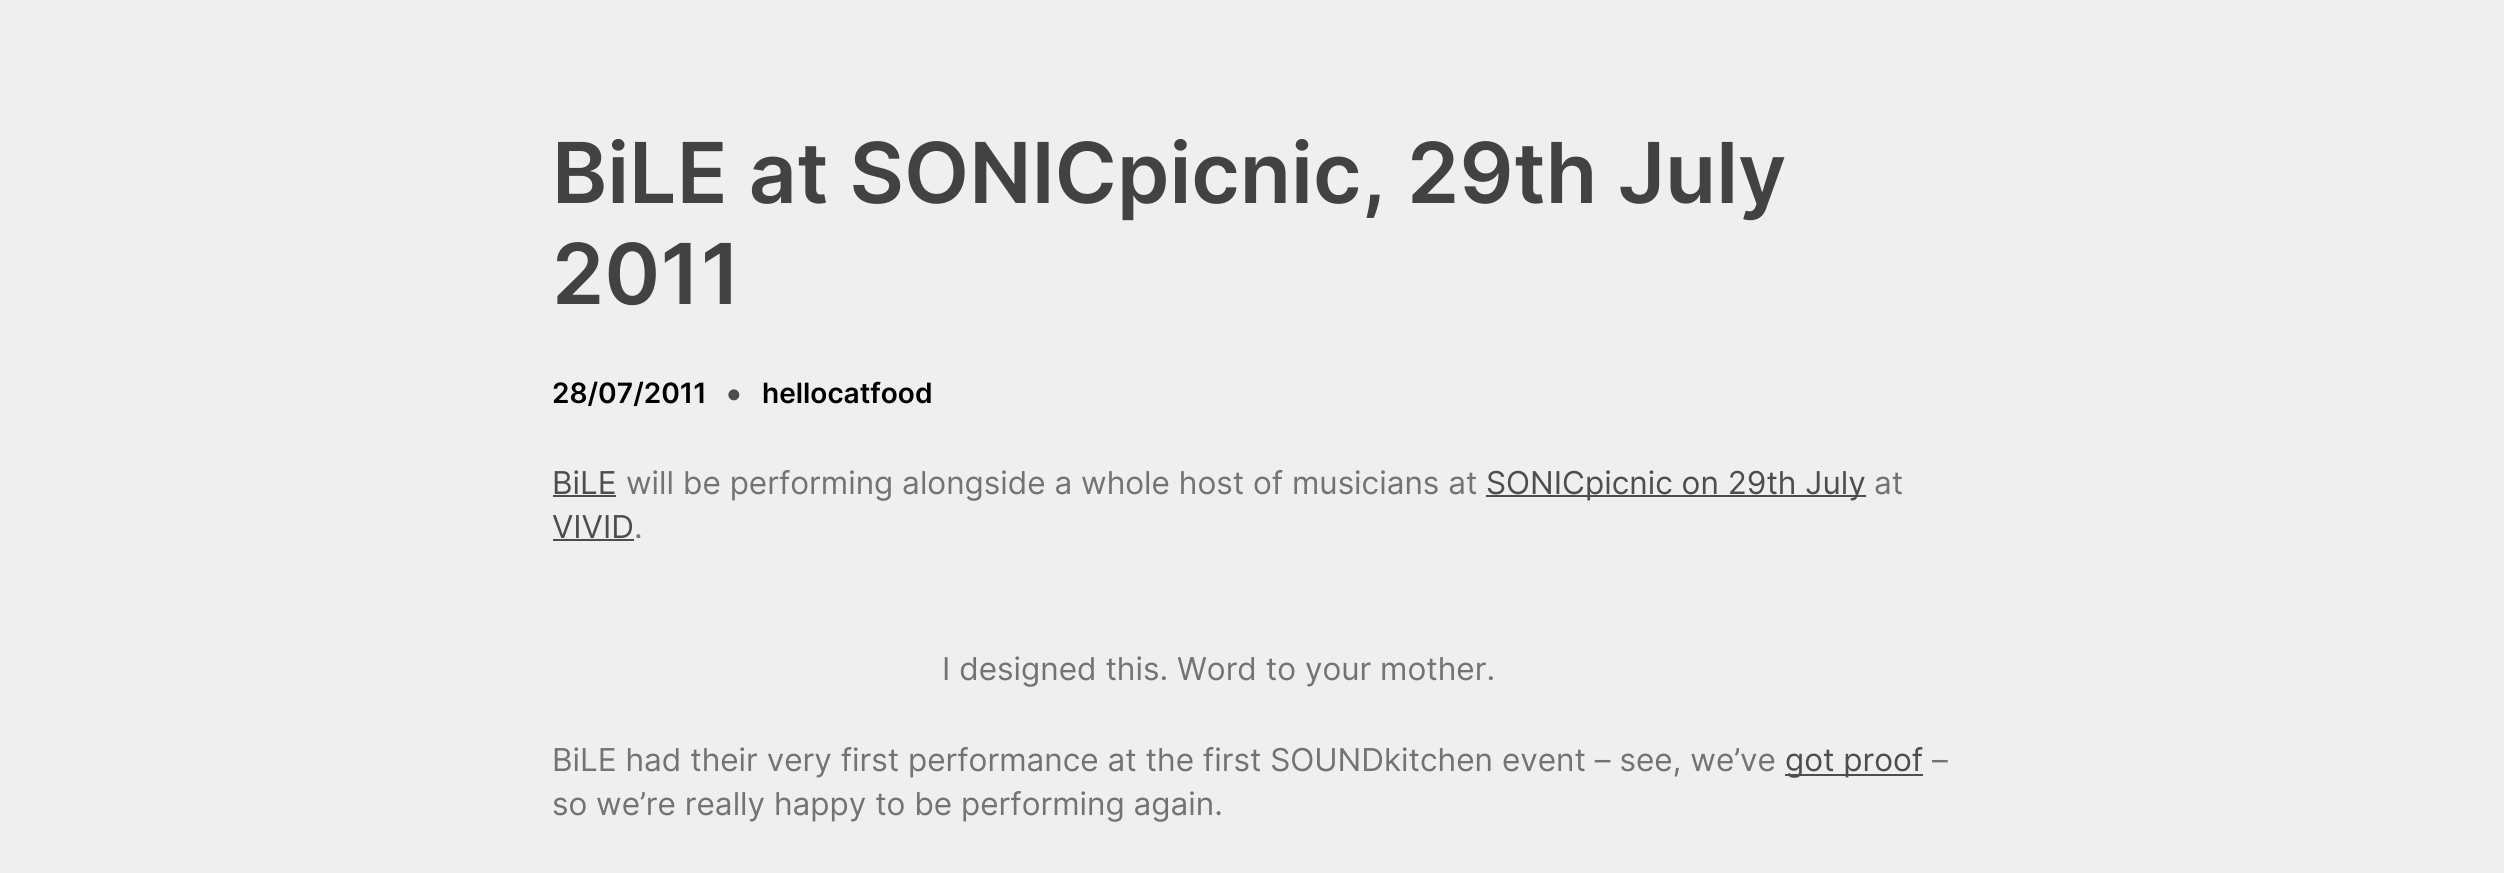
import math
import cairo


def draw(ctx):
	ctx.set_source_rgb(0.937, 0.937, 0.937)
	ctx.paint()
	ctx.select_font_face('Inter SemiBold')
	ctx.set_font_size(84)
	ctx.set_source_rgb(0.259, 0.259, 0.259)
	ctx.move_to(552, 203)
	ctx.show_text('BiLE at SONICpicnic, 29th July')
	ctx.move_to(552, 304)
	ctx.show_text('2011')
	ctx.set_font_size(28)
	ctx.set_source_rgb(0, 0, 0)
	ctx.move_to(552, 403)
	ctx.show_text('28/07/2011')
	ctx.select_font_face('Inter')
	ctx.set_font_size(35)
	ctx.set_source_rgb(0.302, 0.302, 0.302)
	ctx.move_to(724, 405)
	ctx.show_text('•')
	ctx.select_font_face('Inter SemiBold')
	ctx.set_font_size(28)
	ctx.set_source_rgb(0, 0, 0)
	ctx.move_to(762, 403)
	ctx.show_text('hellocatfood')
	ctx.select_font_face('Inter')
	ctx.set_font_size(31.5)
	ctx.set_source_rgb(0.302, 0.302, 0.302)
	ctx.move_to(552, 494)
	ctx.show_text('BiLE')
	ctx.rectangle(553, 495, 63, 2)
	ctx.fill()
	ctx.set_source_rgb(0.451, 0.451, 0.451)
	ctx.move_to(626, 494)
	ctx.show_text('will be performing alongside a whole host of musicians at')
	ctx.set_source_rgb(0.302, 0.302, 0.302)
	ctx.rectangle(1486, 495, 380, 2)
	ctx.fill()
	ctx.move_to(1486, 494)
	ctx.show_text('SONICpicnic on 29th July')
	ctx.set_source_rgb(0.451, 0.451, 0.451)
	ctx.move_to(1874, 494)
	ctx.show_text('at')
	ctx.set_source_rgb(0.302, 0.302, 0.302)
	ctx.move_to(552, 538)
	ctx.show_text('VIVID')
	ctx.rectangle(553, 539, 81, 2)
	ctx.fill()
	ctx.set_source_rgb(0.451, 0.451, 0.451)
	for x, y, s in [
		(634, 538, '.'),
		(942, 680, 'I designed this. Word to your mother.'),
		(552, 771, 'BiLE had their very first performance at the first SOUNDkitchen event – see, we’ve'),
	]:
		ctx.move_to(x, y)
		ctx.show_text(s)
	ctx.set_source_rgb(0.302, 0.302, 0.302)
	ctx.rectangle(1785, 774, 138, 2)
	ctx.fill()
	ctx.move_to(1785, 771)
	ctx.show_text('got proof')
	ctx.set_source_rgb(0.451, 0.451, 0.451)
	ctx.move_to(1932, 771)
	ctx.show_text('–')
	ctx.move_to(552, 815)
	ctx.show_text('so we’re really happy to be performing again.')


surface = cairo.ImageSurface(cairo.FORMAT_RGB24, 2504, 873)
ctx = cairo.Context(surface)
options = cairo.FontOptions()
options.set_hint_metrics(cairo.HINT_METRICS_OFF)
options.set_hint_style(cairo.HINT_STYLE_NONE)
ctx.set_font_options(options)
ctx.set_miter_limit(4)
draw(ctx)
surface.write_to_png('image.png')
